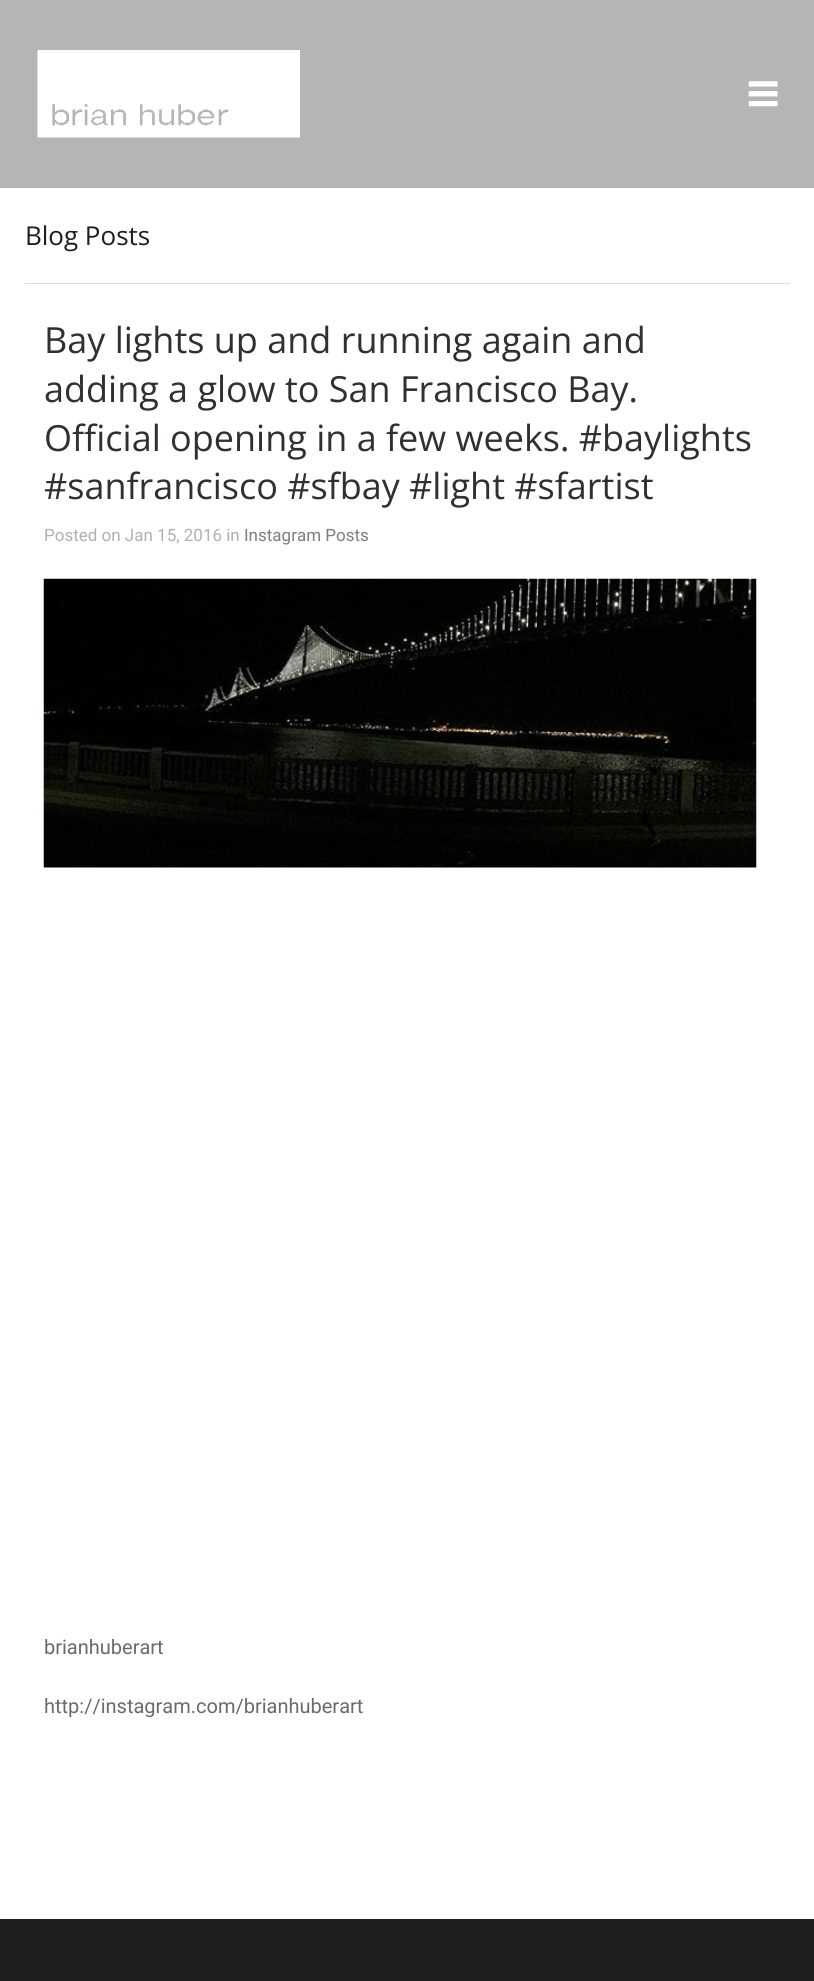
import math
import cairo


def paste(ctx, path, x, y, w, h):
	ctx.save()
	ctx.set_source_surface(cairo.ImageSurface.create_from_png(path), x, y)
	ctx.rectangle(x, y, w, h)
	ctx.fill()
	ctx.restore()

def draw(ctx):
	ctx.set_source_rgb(0.122, 0.122, 0.122)
	ctx.paint()
	ctx.set_source_rgb(0.71, 0.71, 0.71)
	ctx.rectangle(0, 0, 814, 188)
	ctx.fill()
	paste(ctx, 'media/1.png', 37, 50, 263, 88)
	paste(ctx, 'media/2.png', 748, 81, 30, 26)
	ctx.set_source_rgb(1, 1, 1)
	ctx.rectangle(0, 188, 814, 1731)
	ctx.fill()
	ctx.set_source_rgb(0.875, 0.875, 0.871)
	ctx.rectangle(25, 283, 765, 1)
	ctx.fill()
	ctx.select_font_face('Open Sans')
	ctx.set_font_size(26)
	ctx.set_source_rgb(0.122, 0.122, 0.122)
	ctx.move_to(25, 245)
	ctx.show_text('Blog Posts')
	ctx.set_font_size(36)
	ctx.set_source_rgb(0.18, 0.192, 0.2)
	for x, y, s in [
		(44, 353, 'Bay lights up and running again and'),
		(44, 402, 'adding a glow to San Francisco Bay.'),
		(44, 451, 'Official opening in a few weeks. #baylights'),
		(44, 499, '#sanfrancisco #sfbay #light #sfartist'),
	]:
		ctx.move_to(x, y)
		ctx.show_text(s)
	ctx.select_font_face('Roboto')
	ctx.set_font_size(17)
	ctx.set_source_rgb(0.69, 0.69, 0.678)
	ctx.move_to(44, 541)
	ctx.show_text('Posted on Jan 15, 2016 in')
	ctx.set_source_rgb(0.49, 0.49, 0.482)
	ctx.move_to(244, 541)
	ctx.show_text('Instagram Posts')
	paste(ctx, 'media/3.png', 43, 578, 714, 290)
	ctx.set_font_size(20)
	ctx.set_source_rgb(0.416, 0.416, 0.416)
	ctx.move_to(44, 1654)
	ctx.show_text('brianhuberart')
	ctx.move_to(44, 1713)
	ctx.show_text('http://instagram.com/brianhuberart')


surface = cairo.ImageSurface(cairo.FORMAT_RGB24, 814, 1981)
ctx = cairo.Context(surface)
options = cairo.FontOptions()
options.set_hint_metrics(cairo.HINT_METRICS_OFF)
options.set_hint_style(cairo.HINT_STYLE_NONE)
ctx.set_font_options(options)
ctx.set_miter_limit(4)
draw(ctx)
surface.write_to_png('image.png')
